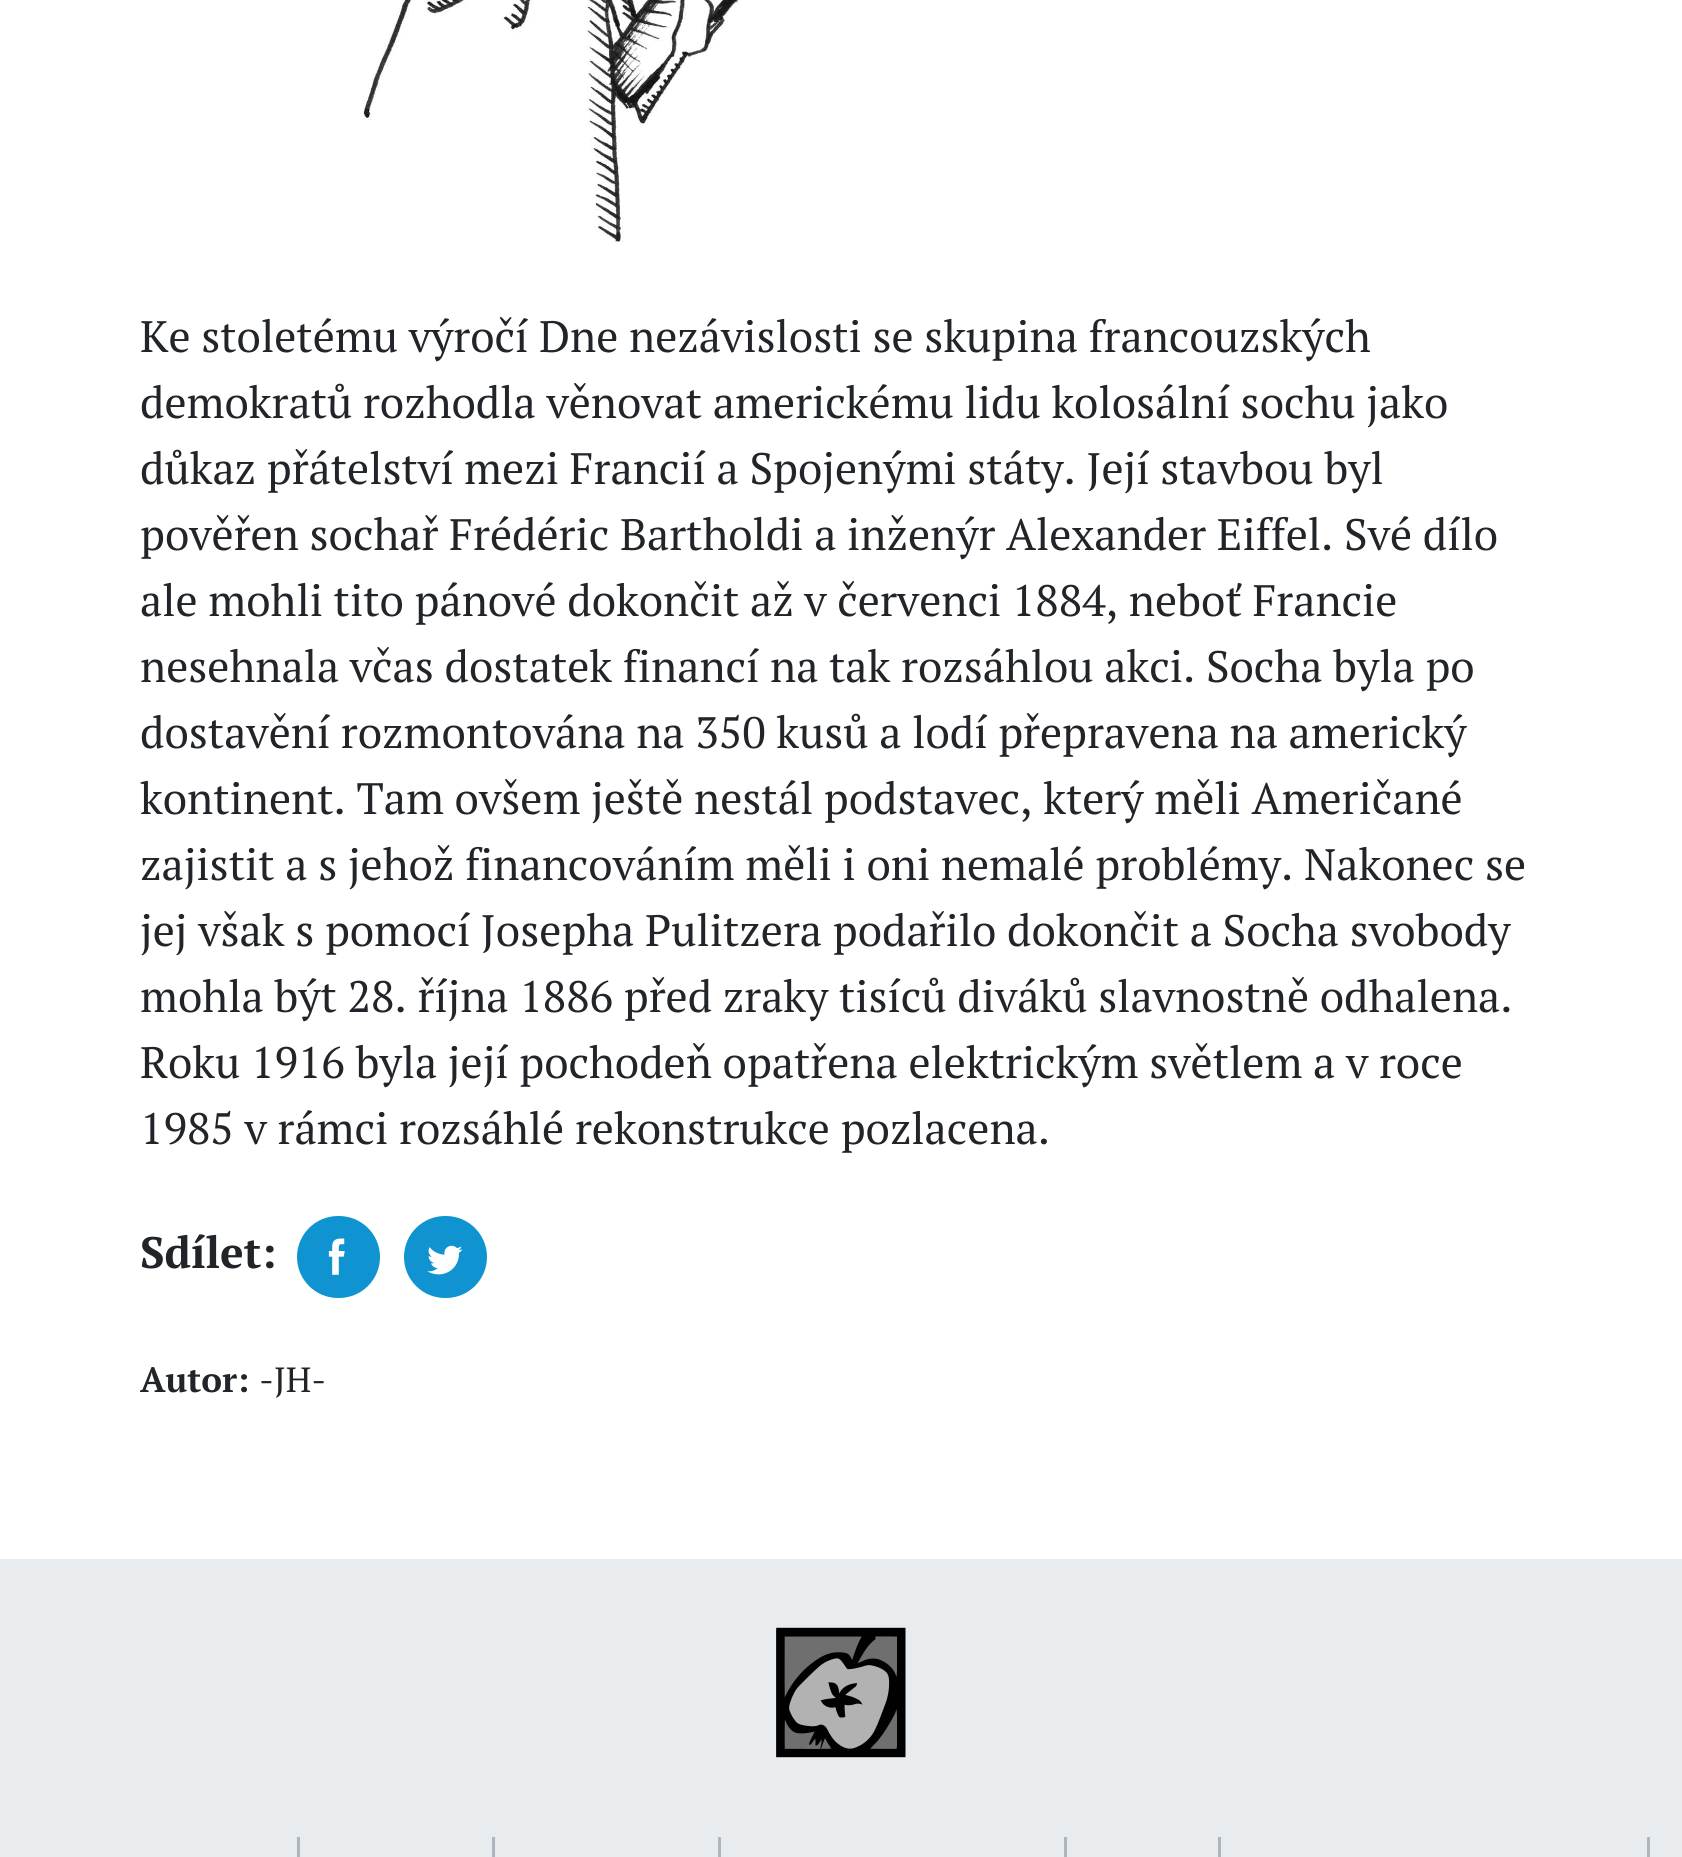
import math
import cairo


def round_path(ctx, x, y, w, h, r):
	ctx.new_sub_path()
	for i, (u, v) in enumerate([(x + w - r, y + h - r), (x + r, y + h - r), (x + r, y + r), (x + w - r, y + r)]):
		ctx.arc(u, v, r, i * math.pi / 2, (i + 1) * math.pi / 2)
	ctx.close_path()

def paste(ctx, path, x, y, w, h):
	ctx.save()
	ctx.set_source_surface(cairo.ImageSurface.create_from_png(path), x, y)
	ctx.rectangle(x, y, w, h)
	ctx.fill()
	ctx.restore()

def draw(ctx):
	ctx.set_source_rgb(1, 1, 1)
	ctx.paint()
	paste(ctx, 'media/1.png', 363, 0, 377, 244)
	ctx.select_font_face('PT Serif')
	ctx.set_font_size(44)
	ctx.set_source_rgb(0.129, 0.145, 0.161)
	for x, y, s in [
		(140, 352, 'Ke stoletému výročí Dne nezávislosti se skupina francouzských'),
		(140, 418, 'demokratů rozhodla věnovat americkému lidu kolosální sochu jako'),
		(140, 484, 'důkaz přátelství mezi Francií a Spojenými státy. Její stavbou byl'),
		(140, 550, 'pověřen sochař Frédéric Bartholdi a inženýr Alexander Eiffel. Své dílo'),
		(140, 616, 'ale mohli tito pánové dokončit až v červenci 1884, neboť Francie'),
		(140, 682, 'nesehnala včas dostatek financí na tak rozsáhlou akci. Socha byla po'),
		(140, 748, 'dostavění rozmontována na 350 kusů a lodí přepravena na americký'),
		(140, 814, 'kontinent. Tam ovšem ještě nestál podstavec, který měli Američané'),
		(140, 880, 'zajistit a s jehož financováním měli i oni nemalé problémy. Nakonec se'),
		(140, 946, 'jej však s pomocí Josepha Pulitzera podařilo dokončit a Socha svobody'),
		(140, 1012, 'mohla být 28. října 1886 před zraky tisíců diváků slavnostně odhalena.'),
		(140, 1078, 'Roku 1916 byla její pochodeň opatřena elektrickým světlem a v roce'),
		(140, 1144, '1985 v rámci rozsáhlé rekonstrukce pozlacena.'),
	]:
		ctx.move_to(x, y)
		ctx.show_text(s)
	ctx.select_font_face('PT Serif', cairo.FONT_SLANT_NORMAL, cairo.FONT_WEIGHT_BOLD)
	ctx.move_to(140, 1268)
	ctx.show_text('Sdílet:')
	ctx.set_source_rgb(0.063, 0.576, 0.82)
	round_path(ctx, 297, 1216, 83, 82, 41)
	ctx.fill()
	round_path(ctx, 404, 1216, 83, 82, 41)
	ctx.fill()
	paste(ctx, 'media/2.png', 328, 1238, 17, 37)
	paste(ctx, 'media/3.png', 427, 1245, 36, 30)
	ctx.set_font_size(35)
	ctx.set_source_rgb(0.129, 0.145, 0.161)
	ctx.move_to(140, 1392)
	ctx.show_text('Autor:')
	ctx.select_font_face('PT Serif')
	ctx.move_to(259, 1392)
	ctx.show_text('-JH-')
	ctx.set_source_rgb(0.914, 0.925, 0.937)
	ctx.rectangle(0, 1559, 1682, 298)
	ctx.fill()
	paste(ctx, 'media/4.png', 776, 1627, 130, 131)
	ctx.set_source_rgb(0.678, 0.71, 0.741)
	ctx.rectangle(297, 1837, 3, 20)
	ctx.rectangle(492, 1837, 3, 20)
	ctx.rectangle(718, 1837, 3, 20)
	ctx.rectangle(1064, 1837, 3, 20)
	ctx.rectangle(1218, 1837, 3, 20)
	ctx.rectangle(1647, 1837, 3, 20)
	ctx.fill()


surface = cairo.ImageSurface(cairo.FORMAT_RGB24, 1682, 1857)
ctx = cairo.Context(surface)
options = cairo.FontOptions()
options.set_hint_metrics(cairo.HINT_METRICS_OFF)
options.set_hint_style(cairo.HINT_STYLE_NONE)
ctx.set_font_options(options)
ctx.set_miter_limit(4)
draw(ctx)
surface.write_to_png('image.png')
